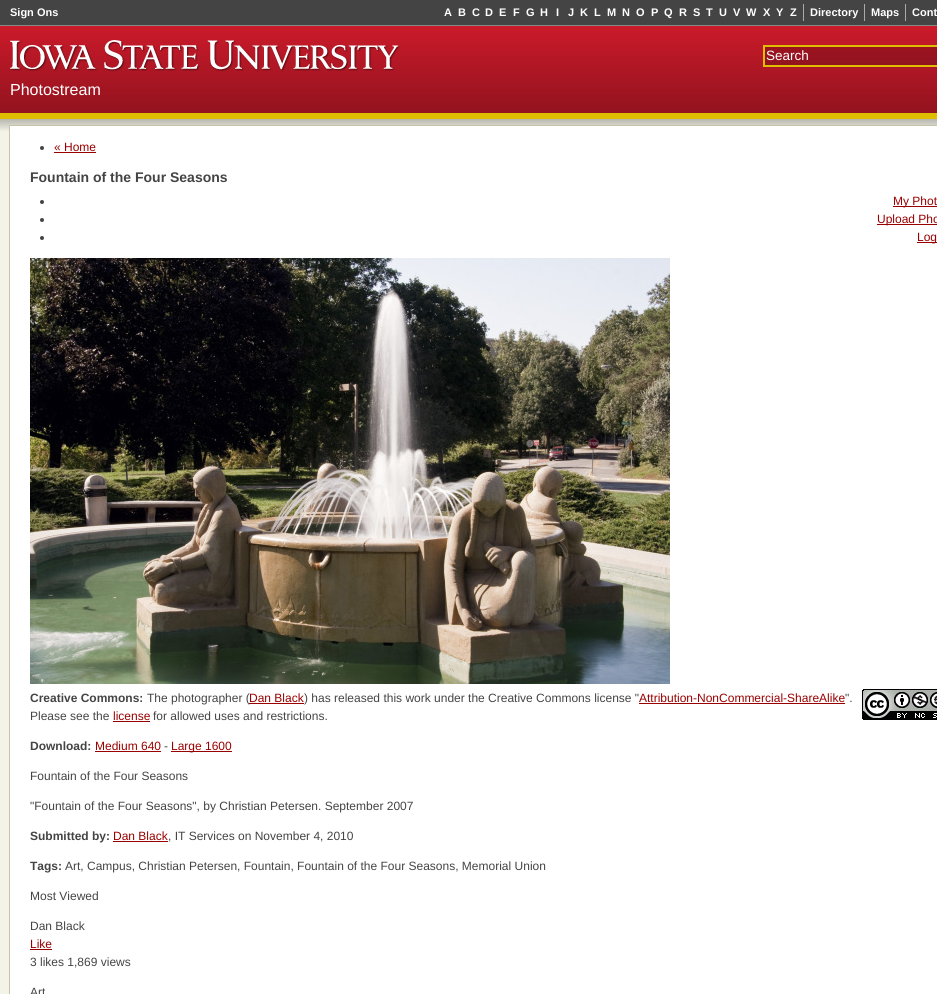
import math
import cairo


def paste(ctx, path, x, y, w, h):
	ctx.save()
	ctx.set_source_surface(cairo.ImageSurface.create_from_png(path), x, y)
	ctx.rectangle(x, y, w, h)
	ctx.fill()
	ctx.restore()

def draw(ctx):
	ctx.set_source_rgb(0.957, 0.953, 0.91)
	ctx.paint()
	paste(ctx, 'media/1.png', 0, 119, 937, 12)
	ctx.set_source_rgb(0.267, 0.267, 0.267)
	ctx.rectangle(0, 0, 937, 25)
	ctx.fill()
	ctx.select_font_face('Liberation Sans', cairo.FONT_SLANT_NORMAL, cairo.FONT_WEIGHT_BOLD)
	ctx.set_font_size(11)
	ctx.set_source_rgb(1, 1, 1)
	for x, y, s in [
		(10, 16, 'Sign Ons'),
		(444, 16, 'A'),
		(458, 16, 'B'),
		(472, 16, 'C'),
		(485, 16, 'D'),
		(499, 16, 'E'),
		(513, 16, 'F'),
		(526, 16, 'G'),
		(540, 16, 'H'),
		(556, 16, 'I'),
		(568, 16, 'J'),
		(580, 16, 'K'),
		(594, 16, 'L'),
		(607, 16, 'M'),
		(622, 16, 'N'),
		(636, 16, 'O'),
		(651, 16, 'P'),
		(664, 16, 'Q'),
		(679, 16, 'R'),
		(693, 16, 'S'),
		(706, 16, 'T'),
		(719, 16, 'U'),
		(733, 16, 'V'),
		(746, 16, 'W'),
		(763, 16, 'X'),
		(776, 16, 'Y'),
		(790, 16, 'Z'),
	]:
		ctx.move_to(x, y)
		ctx.show_text(s)
	ctx.set_source_rgb(0.667, 0.667, 0.667)
	ctx.rectangle(864, 4, 1, 17)
	ctx.fill()
	ctx.rectangle(803, 4, 1, 17)
	ctx.fill()
	ctx.set_source_rgb(1, 1, 1)
	ctx.move_to(810, 16)
	ctx.show_text('Directory')
	ctx.set_source_rgb(0.667, 0.667, 0.667)
	ctx.rectangle(905, 4, 1, 17)
	ctx.fill()
	ctx.set_source_rgb(1, 1, 1)
	ctx.move_to(871, 16)
	ctx.show_text('Maps')
	ctx.move_to(912, 16)
	ctx.show_text('Cont')
	gradient = cairo.LinearGradient(490, 26, 490, 113)
	gradient.add_color_stop_rgba(0, 0.796, 0.102, 0.165, 1)
	gradient.add_color_stop_rgba(1, 0.573, 0.075, 0.118, 1)
	ctx.set_source(gradient)
	ctx.rectangle(0, 26, 937, 87)
	ctx.fill()
	gradient = cairo.LinearGradient(490, 26, 490, 113)
	gradient.add_color_stop_rgba(0, 0.651, 0.082, 0.133, 1)
	gradient.add_color_stop_rgba(1, 0.471, 0.063, 0.098, 1)
	ctx.set_source(gradient)
	ctx.rectangle(765, 47, 172, 18)
	ctx.fill()
	ctx.set_source_rgb(0.533, 0.533, 0.533)
	ctx.rectangle(0, 25, 937, 1)
	ctx.fill()
	ctx.set_source_rgb(0.875, 0.741, 0)
	ctx.rectangle(0, 113, 937, 6)
	ctx.fill()
	paste(ctx, 'media/2.png', 10, 40, 390, 32)
	ctx.rectangle(764, 46, 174, 20)
	ctx.stroke()
	ctx.select_font_face('Liberation Sans')
	ctx.set_font_size(13.5)
	ctx.set_source_rgb(1, 1, 1)
	ctx.move_to(766, 60)
	ctx.show_text('Search')
	ctx.set_font_size(16)
	ctx.move_to(10, 95)
	ctx.show_text('Photostream')
	ctx.rectangle(9.5, 125.5, 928, 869)
	ctx.fill_preserve()
	ctx.set_source_rgb(0.784, 0.761, 0.655)
	ctx.set_line_width(1)
	ctx.stroke()
	ctx.set_source_rgb(0.267, 0.267, 0.267)
	ctx.arc(42, 148, 2, 0, 2 * math.pi)
	ctx.fill()
	ctx.set_font_size(12)
	ctx.set_source_rgb(0.6, 0, 0)
	ctx.move_to(54, 151)
	ctx.show_text('« Home')
	ctx.rectangle(54, 152, 42, 1)
	ctx.fill()
	ctx.select_font_face('Liberation Sans', cairo.FONT_SLANT_NORMAL, cairo.FONT_WEIGHT_BOLD)
	ctx.set_font_size(14)
	ctx.set_source_rgb(0.267, 0.267, 0.267)
	ctx.move_to(30, 182)
	ctx.show_text('Fountain of the Four Seasons')
	ctx.new_path()
	ctx.arc(42, 202, 2, 0, 2 * math.pi)
	ctx.fill()
	ctx.set_source_rgb(0.6, 0, 0)
	ctx.rectangle(893, 206, 44, 1)
	ctx.fill()
	ctx.select_font_face('Liberation Sans')
	ctx.set_font_size(12)
	ctx.move_to(893, 205)
	ctx.show_text('My Phot')
	ctx.set_source_rgb(0.267, 0.267, 0.267)
	ctx.new_path()
	ctx.arc(42, 220, 2, 0, 2 * math.pi)
	ctx.fill()
	ctx.set_source_rgb(0.6, 0, 0)
	ctx.rectangle(877, 224, 60, 1)
	ctx.fill()
	ctx.move_to(877, 223)
	ctx.show_text('Upload Pho')
	ctx.set_source_rgb(0.267, 0.267, 0.267)
	ctx.new_path()
	ctx.arc(42, 238, 2, 0, 2 * math.pi)
	ctx.fill()
	ctx.set_source_rgb(0.6, 0, 0)
	ctx.rectangle(917, 242, 20, 1)
	ctx.fill()
	ctx.move_to(917, 241)
	ctx.show_text('Log')
	paste(ctx, 'media/3.png', 30, 258, 640, 426)
	ctx.select_font_face('Liberation Sans', cairo.FONT_SLANT_NORMAL, cairo.FONT_WEIGHT_BOLD)
	ctx.set_source_rgb(0.267, 0.267, 0.267)
	ctx.move_to(30, 702)
	ctx.show_text('Creative Commons:')
	ctx.select_font_face('Liberation Sans')
	ctx.move_to(147, 702)
	ctx.show_text('The photographer (')
	ctx.set_source_rgb(0.6, 0, 0)
	ctx.move_to(249, 702)
	ctx.show_text('Dan Black')
	ctx.rectangle(249, 703, 55, 1)
	ctx.fill()
	ctx.set_source_rgb(0.267, 0.267, 0.267)
	ctx.move_to(304, 702)
	ctx.show_text(') has released this work under the Creative Commons license "')
	ctx.set_source_rgb(0.6, 0, 0)
	ctx.move_to(639, 702)
	ctx.show_text('Attribution-NonCommercial-ShareAlike')
	ctx.rectangle(639, 703, 206, 1)
	ctx.fill()
	ctx.set_source_rgb(0.267, 0.267, 0.267)
	ctx.move_to(845, 702)
	ctx.show_text('".')
	paste(ctx, 'media/4.png', 862, 689, 75, 31)
	ctx.move_to(30, 720)
	ctx.show_text('Please see the')
	ctx.set_source_rgb(0.6, 0, 0)
	ctx.move_to(113, 720)
	ctx.show_text('license')
	ctx.rectangle(113, 721, 37, 1)
	ctx.fill()
	ctx.set_source_rgb(0.267, 0.267, 0.267)
	ctx.move_to(153, 720)
	ctx.show_text('for allowed uses and restrictions.')
	ctx.select_font_face('Liberation Sans', cairo.FONT_SLANT_NORMAL, cairo.FONT_WEIGHT_BOLD)
	ctx.move_to(30, 750)
	ctx.show_text('Download:')
	ctx.select_font_face('Liberation Sans')
	ctx.set_source_rgb(0.6, 0, 0)
	ctx.move_to(95, 750)
	ctx.show_text('Medium 640')
	ctx.rectangle(95, 751, 66, 1)
	ctx.fill()
	ctx.set_source_rgb(0.267, 0.267, 0.267)
	ctx.move_to(164, 750)
	ctx.show_text('-')
	ctx.set_source_rgb(0.6, 0, 0)
	ctx.rectangle(171, 751, 61, 1)
	ctx.fill()
	ctx.move_to(171, 750)
	ctx.show_text('Large 1600')
	ctx.set_source_rgb(0.267, 0.267, 0.267)
	ctx.move_to(30, 780)
	ctx.show_text('Fountain of the Four Seasons')
	ctx.move_to(30, 810)
	ctx.show_text('"Fountain of the Four Seasons", by Christian Petersen. September 2007')
	ctx.select_font_face('Liberation Sans', cairo.FONT_SLANT_NORMAL, cairo.FONT_WEIGHT_BOLD)
	ctx.move_to(30, 840)
	ctx.show_text('Submitted by:')
	ctx.select_font_face('Liberation Sans')
	ctx.set_source_rgb(0.6, 0, 0)
	ctx.move_to(113, 840)
	ctx.show_text('Dan Black')
	ctx.rectangle(113, 841, 55, 1)
	ctx.fill()
	ctx.set_source_rgb(0.267, 0.267, 0.267)
	ctx.move_to(168, 840)
	ctx.show_text(', IT Services on November 4, 2010')
	ctx.select_font_face('Liberation Sans', cairo.FONT_SLANT_NORMAL, cairo.FONT_WEIGHT_BOLD)
	ctx.move_to(30, 870)
	ctx.show_text('Tags:')
	ctx.select_font_face('Liberation Sans')
	for x, y, s in [
		(65, 870, 'Art, Campus, Christian Petersen, Fountain, Fountain of the Four Seasons, Memorial Union'),
		(30, 900, 'Most Viewed'),
		(30, 930, 'Dan Black'),
	]:
		ctx.move_to(x, y)
		ctx.show_text(s)
	ctx.set_source_rgb(0.6, 0, 0)
	ctx.move_to(30, 948)
	ctx.show_text('Like')
	ctx.rectangle(30, 949, 22, 1)
	ctx.fill()
	ctx.set_source_rgb(0.267, 0.267, 0.267)
	ctx.move_to(30, 966)
	ctx.show_text('3 likes 1,869 views')
	ctx.move_to(30, 996)
	ctx.show_text('Art')


surface = cairo.ImageSurface(cairo.FORMAT_RGB24, 937, 994)
ctx = cairo.Context(surface)
options = cairo.FontOptions()
options.set_hint_metrics(cairo.HINT_METRICS_OFF)
options.set_hint_style(cairo.HINT_STYLE_NONE)
ctx.set_font_options(options)
ctx.set_miter_limit(4)
draw(ctx)
surface.write_to_png('image.png')
